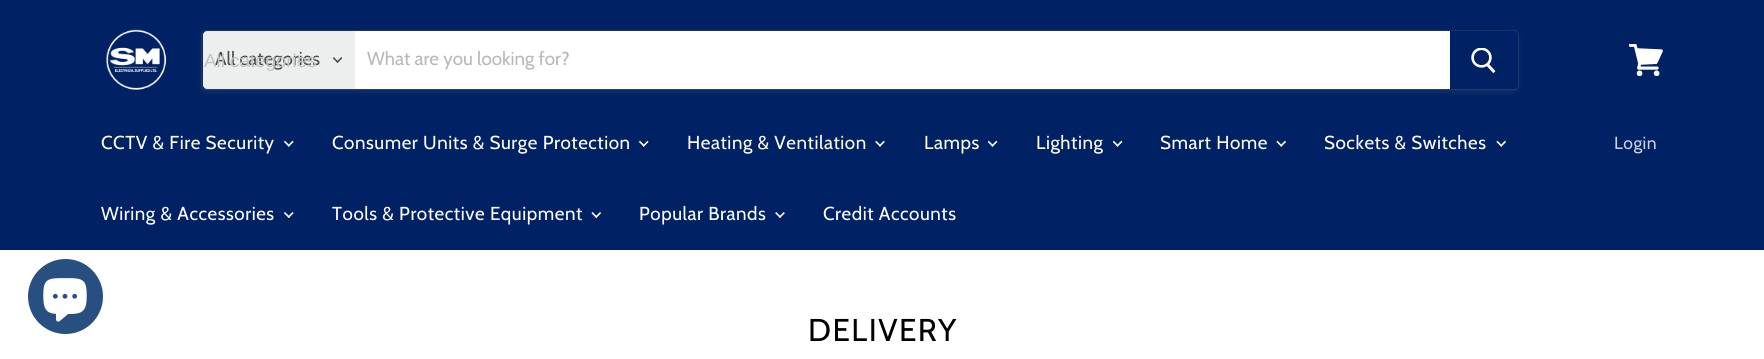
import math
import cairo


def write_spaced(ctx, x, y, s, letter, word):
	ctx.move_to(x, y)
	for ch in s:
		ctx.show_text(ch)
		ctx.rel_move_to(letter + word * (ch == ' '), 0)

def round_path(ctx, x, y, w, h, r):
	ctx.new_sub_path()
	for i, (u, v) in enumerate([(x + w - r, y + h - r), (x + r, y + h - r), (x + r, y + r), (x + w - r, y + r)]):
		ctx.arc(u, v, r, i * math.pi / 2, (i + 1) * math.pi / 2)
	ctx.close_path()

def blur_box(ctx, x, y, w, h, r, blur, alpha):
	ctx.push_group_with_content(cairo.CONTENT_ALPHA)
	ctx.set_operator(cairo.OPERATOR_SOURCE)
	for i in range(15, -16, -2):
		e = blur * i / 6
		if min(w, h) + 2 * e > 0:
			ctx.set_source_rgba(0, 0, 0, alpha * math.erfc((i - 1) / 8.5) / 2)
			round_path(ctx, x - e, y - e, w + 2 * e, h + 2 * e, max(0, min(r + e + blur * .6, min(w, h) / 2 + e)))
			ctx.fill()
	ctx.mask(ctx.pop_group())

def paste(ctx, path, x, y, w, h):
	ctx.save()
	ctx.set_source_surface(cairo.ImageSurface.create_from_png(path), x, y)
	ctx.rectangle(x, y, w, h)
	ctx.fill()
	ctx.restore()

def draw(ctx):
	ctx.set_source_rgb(1, 1, 1)
	ctx.paint()
	ctx.set_source_rgb(0, 0.133, 0.392)
	ctx.rectangle(0, 0, 1764, 250)
	ctx.fill()
	paste(ctx, 'media/1.png', 106, 29, 61, 61)
	ctx.set_source_rgb(0.502, 0.502, 0.502)
	blur_box(ctx, 201, 33, 1318, 60, 5, 2, 0.11)
	round_path(ctx, 201.5, 30.5, 1317, 59, 4.5)
	ctx.set_source_rgba(0.502, 0.502, 0.502, 0.2)
	ctx.set_line_width(1)
	ctx.stroke()
	ctx.set_source_rgb(0.929, 0.933, 0.933)
	ctx.new_path()
	ctx.move_to(207, 31)
	ctx.line_to(355, 31)
	ctx.line_to(355, 89)
	ctx.line_to(207, 89)
	ctx.curve_to(205, 89, 203, 87, 203, 85)
	ctx.line_to(203, 35)
	ctx.curve_to(203, 33, 205, 31, 207, 31)
	ctx.close_path()
	ctx.fill()
	ctx.select_font_face('Cabin')
	ctx.set_font_size(18.75)
	ctx.set_source_rgb(0.302, 0.302, 0.302)
	ctx.move_to(215, 65)
	ctx.show_text('All categories')
	ctx.select_font_face('Liberation Sans')
	ctx.set_source_rgb(0.761, 0.761, 0.761)
	ctx.move_to(204, 67)
	ctx.show_text('All categories')
	paste(ctx, 'media/2.png', 333, 57, 10, 6)
	ctx.set_source_rgb(1, 1, 1)
	ctx.rectangle(355, 31, 1095, 58)
	ctx.fill()
	ctx.select_font_face('Cabin')
	ctx.set_source_rgb(0.722, 0.722, 0.722)
	ctx.move_to(367, 65)
	ctx.show_text('What are you looking for?')
	ctx.set_source_rgb(0, 0.133, 0.392)
	ctx.new_path()
	ctx.move_to(1450.5, 31.5)
	ctx.line_to(1514, 31.5)
	ctx.curve_to(1516, 31.5, 1517.5, 33, 1517.5, 35)
	ctx.line_to(1517.5, 85)
	ctx.curve_to(1517.5, 87, 1516, 88.5, 1514, 88.5)
	ctx.line_to(1450.5, 88.5)
	ctx.close_path()
	ctx.fill_preserve()
	ctx.stroke()
	paste(ctx, 'media/3.png', 1471, 48, 25, 26)
	paste(ctx, 'media/4.png', 1629, 44, 34, 32)
	ctx.set_source_rgb(1, 1, 1)
	write_spaced(ctx, 101, 149, 'CCTV & Fire Security', 0.55, 0)
	paste(ctx, 'media/5.png', 284, 140, 10, 7)
	write_spaced(ctx, 332, 149, 'Consumer Units & Surge Protection', 0.55, 0)
	paste(ctx, 'media/5.png', 639, 140, 10, 7)
	write_spaced(ctx, 687, 149, 'Heating & Ventilation', 0.55, 0)
	paste(ctx, 'media/6.png', 875, 140, 10, 7)
	write_spaced(ctx, 924, 149, 'Lamps', 0.55, 0)
	paste(ctx, 'media/7.png', 988, 140, 10, 7)
	write_spaced(ctx, 1036, 149, 'Lighting', 0.55, 0)
	paste(ctx, 'media/7.png', 1113, 140, 10, 7)
	write_spaced(ctx, 1160, 149, 'Smart Home', 0.55, 0)
	paste(ctx, 'media/8.png', 1276, 140, 10, 7)
	write_spaced(ctx, 1324, 149, 'Sockets & Switches', 0.55, 0)
	paste(ctx, 'media/8.png', 1496, 140, 10, 7)
	write_spaced(ctx, 101, 220, 'Wiring & Accessories', 0.55, 0)
	paste(ctx, 'media/9.png', 284, 212, 10, 6)
	write_spaced(ctx, 332, 220, 'Tools & Protective Equipment', 0.55, 0)
	paste(ctx, 'media/10.png', 591, 212, 10, 6)
	write_spaced(ctx, 639, 220, 'Popular Brands', 0.55, 0)
	paste(ctx, 'media/11.png', 775, 212, 10, 6)
	write_spaced(ctx, 823, 220, 'Credit Accounts', 0.55, 0)
	ctx.set_font_size(17.5)
	ctx.set_source_rgb(0.8, 0.827, 0.878)
	write_spaced(ctx, 1614, 149, 'Login', 0.5, 0)
	ctx.set_source_rgb(0.153, 0.31, 0.498)
	ctx.new_path()
	ctx.arc(65.5, 296.5, 37.5, 0, 2 * math.pi)
	ctx.fill()
	paste(ctx, 'media/12.png', 43, 278, 44, 44)
	ctx.set_font_size(31.5)
	ctx.set_source_rgb(0, 0, 0)
	write_spaced(ctx, 808, 341, 'DELIVERY', 1.5, 0)


surface = cairo.ImageSurface(cairo.FORMAT_RGB24, 1764, 359)
ctx = cairo.Context(surface)
options = cairo.FontOptions()
options.set_hint_metrics(cairo.HINT_METRICS_OFF)
options.set_hint_style(cairo.HINT_STYLE_NONE)
ctx.set_font_options(options)
ctx.set_miter_limit(4)
draw(ctx)
surface.write_to_png('image.png')
